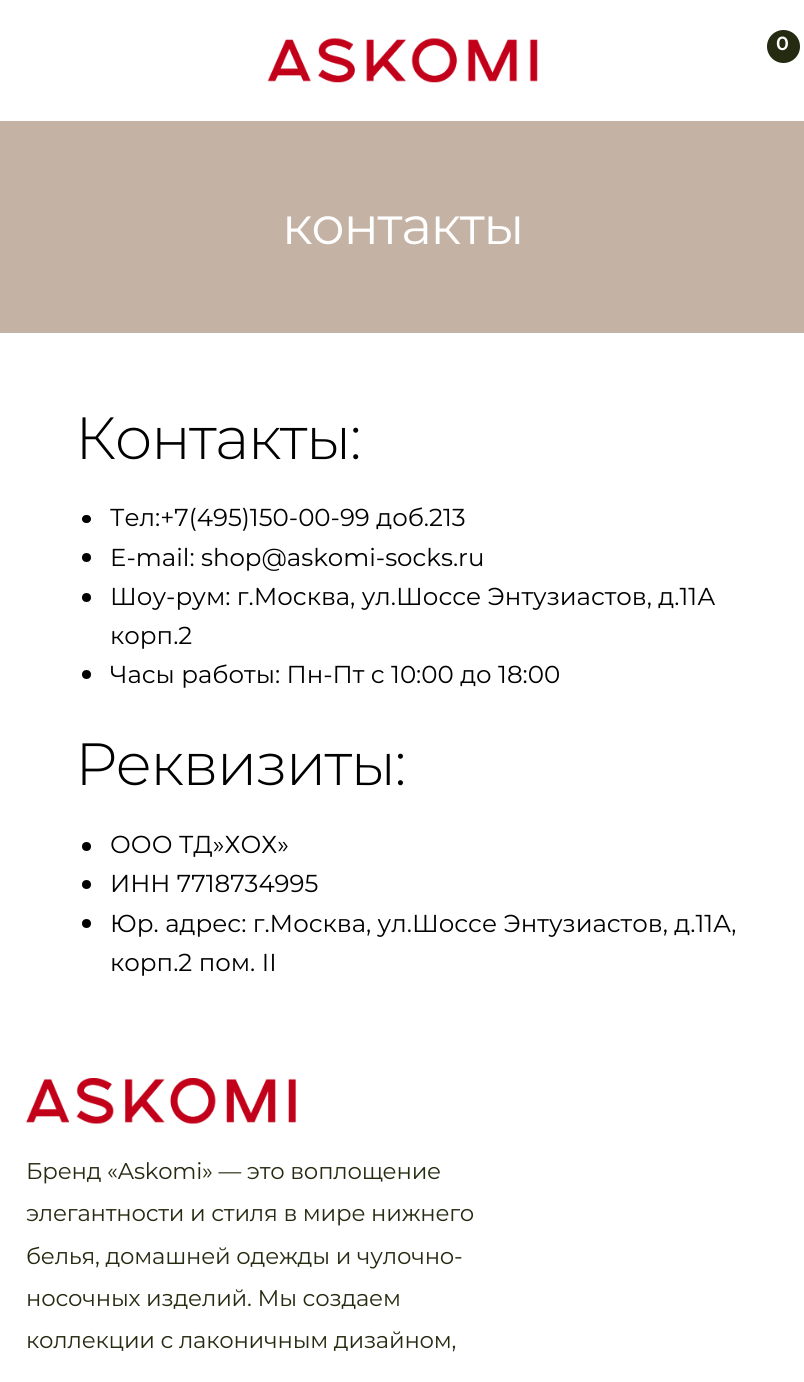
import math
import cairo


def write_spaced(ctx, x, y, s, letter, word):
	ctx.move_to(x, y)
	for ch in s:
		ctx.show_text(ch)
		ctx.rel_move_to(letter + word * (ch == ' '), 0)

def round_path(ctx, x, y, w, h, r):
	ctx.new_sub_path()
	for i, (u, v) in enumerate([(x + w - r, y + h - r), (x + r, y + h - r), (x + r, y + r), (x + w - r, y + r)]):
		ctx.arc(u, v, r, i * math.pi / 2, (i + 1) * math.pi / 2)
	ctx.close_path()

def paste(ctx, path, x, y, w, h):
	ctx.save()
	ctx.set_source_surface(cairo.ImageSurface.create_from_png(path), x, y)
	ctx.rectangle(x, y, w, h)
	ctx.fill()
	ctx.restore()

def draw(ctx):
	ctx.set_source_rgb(1, 1, 1)
	ctx.paint()
	paste(ctx, 'media/1.png', 267, 38, 271, 45)
	ctx.set_source_rgb(0.145, 0.169, 0.067)
	ctx.arc(783.5, 46.5, 16.5, 0, 2 * math.pi)
	ctx.fill()
	ctx.select_font_face('Montserrat SemiBold')
	ctx.set_font_size(19)
	ctx.set_source_rgb(1, 1, 1)
	ctx.move_to(776, 50)
	ctx.show_text('0')
	ctx.set_source_rgb(0.769, 0.698, 0.643)
	ctx.rectangle(0, 121, 804, 212)
	ctx.fill()
	ctx.select_font_face('Montserrat')
	ctx.set_font_size(52.5)
	ctx.set_source_rgb(1, 1, 1)
	write_spaced(ctx, 282, 244, 'контакты', -1.25, 0)
	ctx.select_font_face('Montserrat Light')
	ctx.set_font_size(59.5)
	ctx.set_source_rgb(0, 0, 0)
	write_spaced(ctx, 75, 459, 'Контакты:', -1.5, 0)
	round_path(ctx, 82, 515, 9, 8, 4)
	ctx.fill()
	ctx.select_font_face('Montserrat')
	ctx.set_font_size(24.5)
	ctx.move_to(110, 526)
	ctx.show_text('Тел:+7(495)150-00-99 доб.213')
	ctx.new_path()
	ctx.arc(86.5, 557.5, 4.5, 0, 2 * math.pi)
	ctx.fill()
	ctx.move_to(110, 566)
	ctx.show_text('E-mail: shop@askomi-socks.ru')
	ctx.new_path()
	ctx.arc(86.5, 597.5, 4.5, 0, 2 * math.pi)
	ctx.fill()
	ctx.move_to(110, 605)
	ctx.show_text('Шоу-рум: г.Москва, ул.Шоссе Энтузиастов, д.11А')
	ctx.move_to(110, 644)
	ctx.show_text('корп.2')
	ctx.new_path()
	ctx.arc(86.5, 674.5, 4.5, 0, 2 * math.pi)
	ctx.fill()
	ctx.move_to(110, 683)
	ctx.show_text('Часы работы: Пн-Пт с 10:00 до 18:00')
	ctx.select_font_face('Montserrat Light')
	ctx.set_font_size(59.5)
	write_spaced(ctx, 75, 785, 'Реквизиты:', -1.5, 0)
	ctx.new_path()
	ctx.arc(86.5, 846.5, 4.5, 0, 2 * math.pi)
	ctx.fill()
	ctx.select_font_face('Montserrat')
	ctx.set_font_size(24.5)
	ctx.move_to(110, 853)
	ctx.show_text('ООО ТД»ХОХ»')
	ctx.new_path()
	ctx.arc(86.5, 884.5, 4.5, 0, 2 * math.pi)
	ctx.fill()
	ctx.move_to(110, 892)
	ctx.show_text('ИНН 7718734995')
	ctx.new_path()
	ctx.arc(86.5, 923.5, 4.5, 0, 2 * math.pi)
	ctx.fill()
	ctx.move_to(110, 932)
	ctx.show_text('Юр. адрес: г.Москва, ул.Шоссе Энтузиастов, д.11А,')
	ctx.move_to(110, 971)
	ctx.show_text('корп.2 пом. II')
	paste(ctx, 'media/2.png', 26, 1078, 270, 46)
	ctx.set_font_size(22.75)
	ctx.set_source_rgb(0.145, 0.169, 0.067)
	for x, y, s in [
		(26, 1179, 'Бренд «Askomi» — это воплощение'),
		(26, 1221, 'элегантности и стиля в мире нижнего'),
		(26, 1264, 'белья, домашней одежды и чулочно-'),
		(26, 1306, 'носочных изделий. Мы создаем'),
		(26, 1348, 'коллекции с лаконичным дизайном,'),
	]:
		write_spaced(ctx, x, y, s, -0.2, 0)


surface = cairo.ImageSurface(cairo.FORMAT_RGB24, 804, 1382)
ctx = cairo.Context(surface)
options = cairo.FontOptions()
options.set_hint_metrics(cairo.HINT_METRICS_OFF)
options.set_hint_style(cairo.HINT_STYLE_NONE)
ctx.set_font_options(options)
ctx.set_miter_limit(4)
draw(ctx)
surface.write_to_png('image.png')
